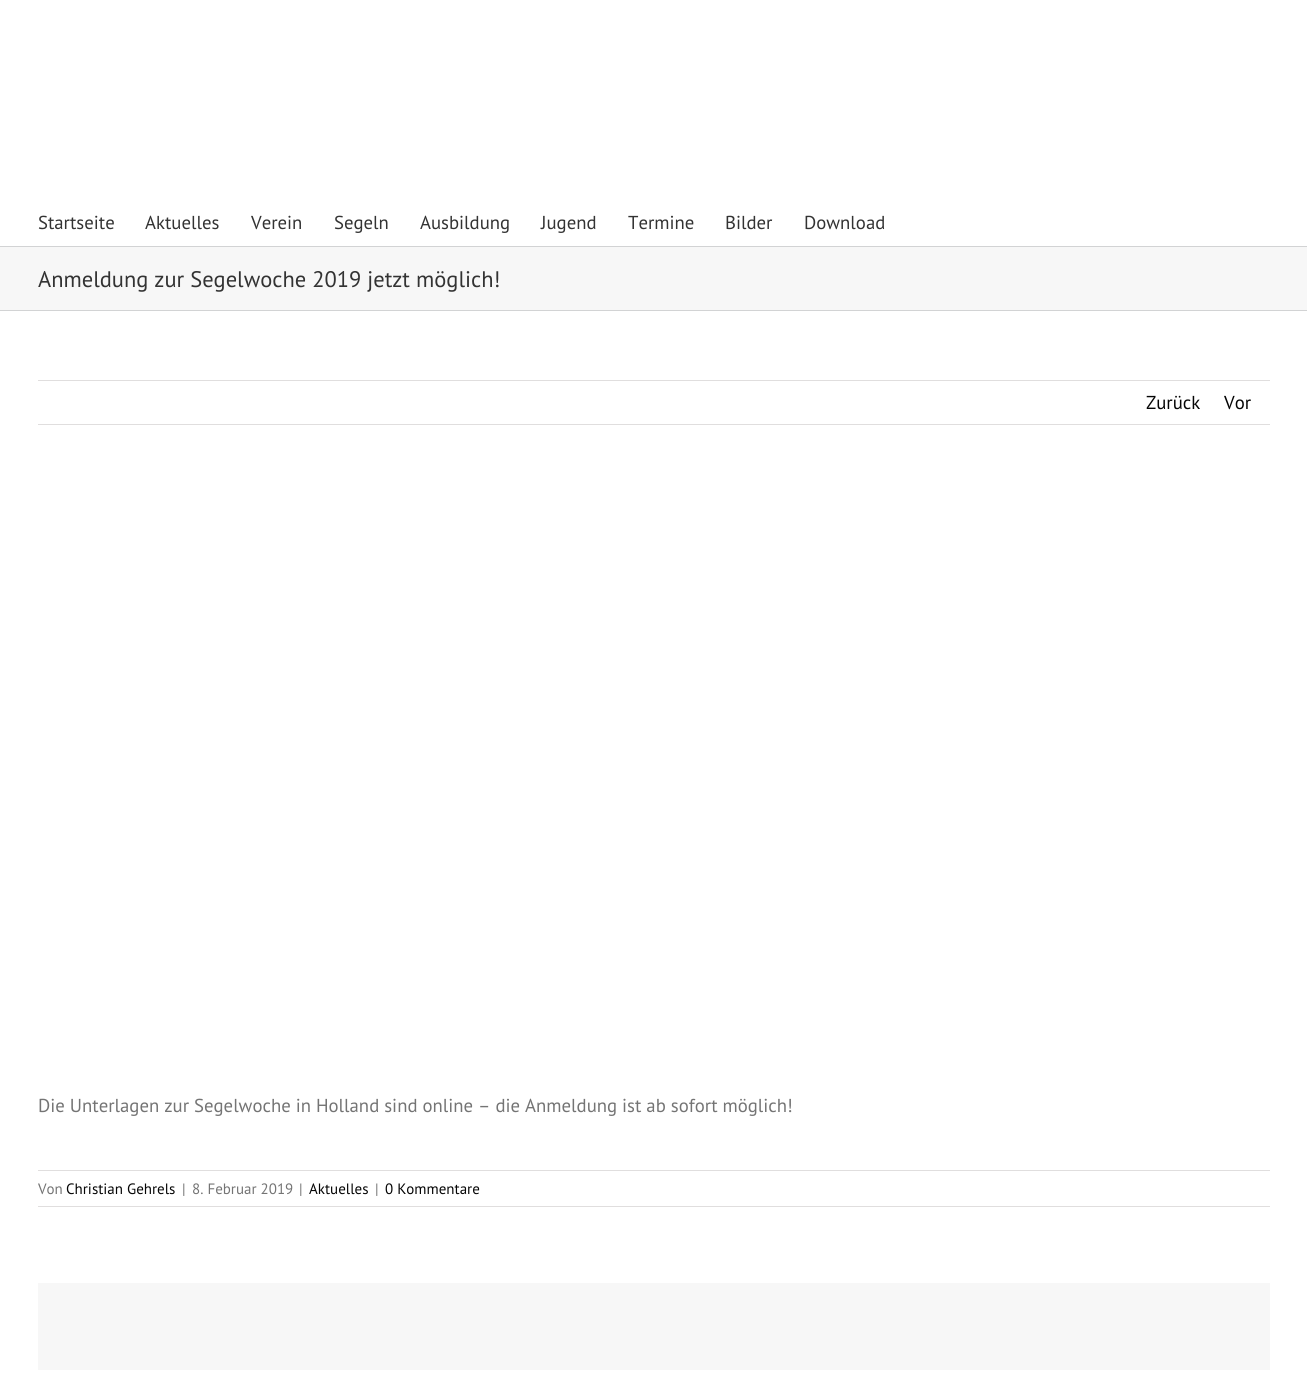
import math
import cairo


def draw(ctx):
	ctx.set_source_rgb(1, 1, 1)
	ctx.paint()
	ctx.select_font_face('PT Sans')
	ctx.set_font_size(18.75)
	ctx.set_source_rgb(0.2, 0.2, 0.2)
	for x, y, s in [
		(38, 229, 'Startseite'),
		(145, 229, 'Aktuelles'),
		(251, 229, 'Verein'),
		(334, 229, 'Segeln'),
		(420, 229, 'Ausbildung'),
		(541, 229, 'Jugend'),
		(628, 229, 'Termine'),
		(725, 229, 'Bilder'),
		(804, 229, 'Download'),
	]:
		ctx.move_to(x, y)
		ctx.show_text(s)
	ctx.set_source_rgb(0.965, 0.965, 0.965)
	ctx.rectangle(0, 247, 1307, 63)
	ctx.fill()
	ctx.set_source_rgb(0.824, 0.827, 0.831)
	ctx.rectangle(0, 246, 1307, 1)
	ctx.rectangle(0, 310, 1307, 1)
	ctx.fill()
	ctx.set_font_size(22.5)
	ctx.set_source_rgb(0.2, 0.2, 0.2)
	ctx.move_to(38, 287)
	ctx.show_text('Anmeldung zur Segelwoche 2019 jetzt möglich!')
	ctx.set_source_rgb(0.878, 0.871, 0.871)
	ctx.rectangle(38, 380, 1232, 1)
	ctx.fill()
	ctx.rectangle(38, 424, 1232, 1)
	ctx.fill()
	ctx.set_font_size(18.75)
	ctx.set_source_rgb(0.02, 0.02, 0.02)
	ctx.move_to(1146, 409)
	ctx.show_text('Zurück')
	ctx.move_to(1224, 409)
	ctx.show_text('Vor')
	ctx.set_source_rgb(0.455, 0.455, 0.455)
	ctx.move_to(38, 1112)
	ctx.show_text('Die Unterlagen zur Segelwoche in Holland sind online – die Anmeldung ist ab sofort möglich!')
	ctx.set_source_rgb(0.878, 0.871, 0.871)
	ctx.rectangle(38, 1170, 1232, 1)
	ctx.fill()
	ctx.rectangle(38, 1206, 1232, 1)
	ctx.fill()
	ctx.set_font_size(15)
	ctx.set_source_rgb(0.455, 0.455, 0.455)
	ctx.move_to(38, 1194)
	ctx.show_text('Von')
	ctx.set_source_rgb(0.02, 0.02, 0.02)
	ctx.move_to(66, 1194)
	ctx.show_text('Christian Gehrels')
	ctx.set_source_rgb(0.455, 0.455, 0.455)
	for x, y, s in [
		(182, 1194, '|'),
		(192, 1194, '8. Februar 2019'),
		(299, 1194, '|'),
	]:
		ctx.move_to(x, y)
		ctx.show_text(s)
	ctx.set_source_rgb(0.02, 0.02, 0.02)
	ctx.move_to(309, 1194)
	ctx.show_text('Aktuelles')
	ctx.set_source_rgb(0.455, 0.455, 0.455)
	ctx.move_to(375, 1194)
	ctx.show_text('|')
	ctx.set_source_rgb(0.02, 0.02, 0.02)
	ctx.move_to(385, 1194)
	ctx.show_text('0 Kommentare')
	ctx.set_source_rgb(0.965, 0.965, 0.965)
	ctx.rectangle(38, 1283, 1232, 87)
	ctx.fill()


surface = cairo.ImageSurface(cairo.FORMAT_RGB24, 1307, 1381)
ctx = cairo.Context(surface)
options = cairo.FontOptions()
options.set_hint_metrics(cairo.HINT_METRICS_OFF)
options.set_hint_style(cairo.HINT_STYLE_NONE)
ctx.set_font_options(options)
ctx.set_miter_limit(4)
draw(ctx)
surface.write_to_png('image.png')
